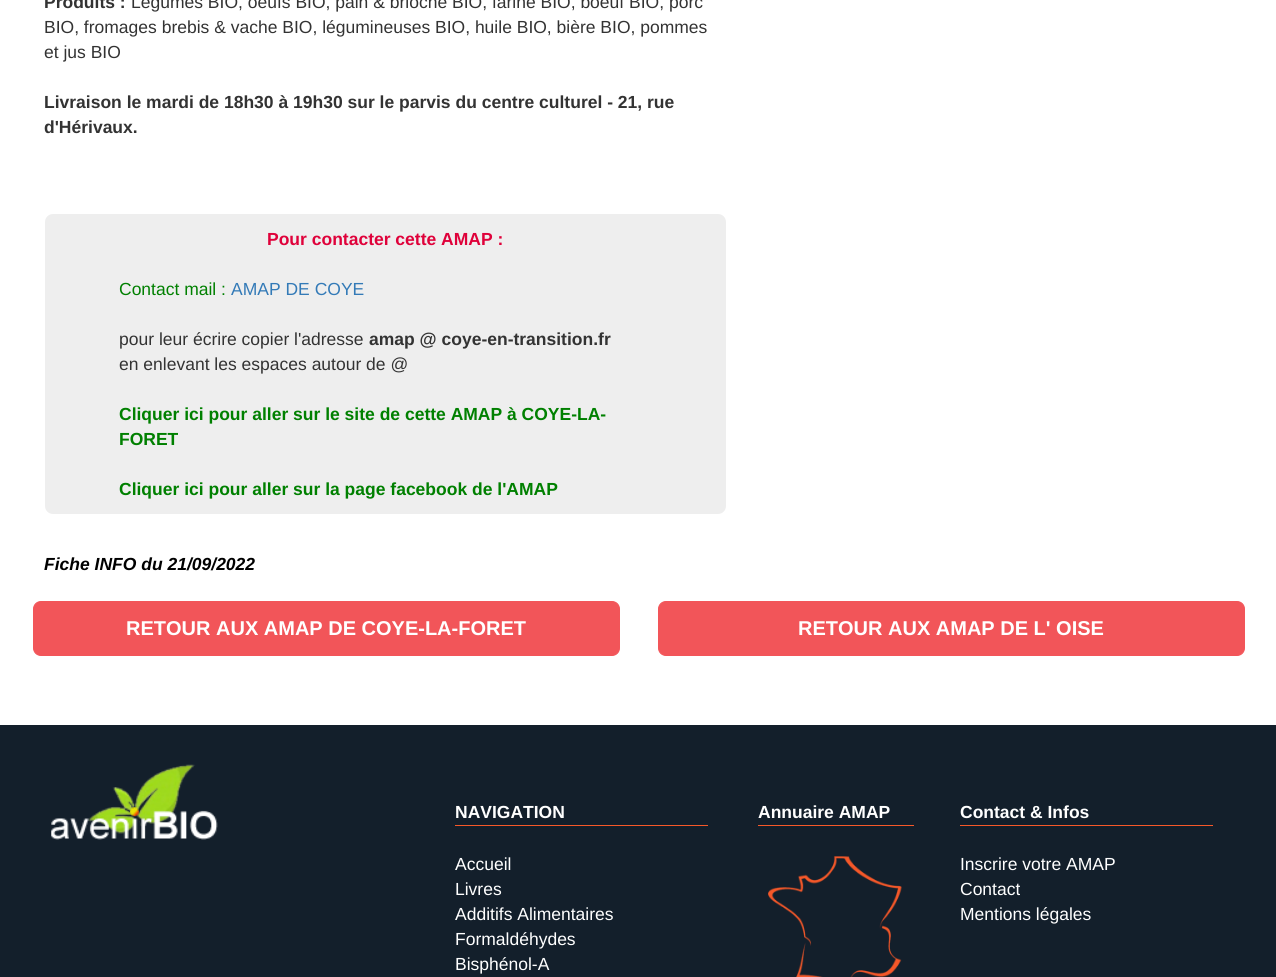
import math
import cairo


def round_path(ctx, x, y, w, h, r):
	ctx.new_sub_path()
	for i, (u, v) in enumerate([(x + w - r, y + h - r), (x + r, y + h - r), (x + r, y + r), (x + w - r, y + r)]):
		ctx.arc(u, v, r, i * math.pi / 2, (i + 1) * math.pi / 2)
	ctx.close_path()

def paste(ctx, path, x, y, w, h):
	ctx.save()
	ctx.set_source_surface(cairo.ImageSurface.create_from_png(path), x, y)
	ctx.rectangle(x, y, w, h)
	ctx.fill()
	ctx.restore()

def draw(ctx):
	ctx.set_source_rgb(1, 1, 1)
	ctx.paint()
	ctx.select_font_face('Liberation Sans', cairo.FONT_SLANT_NORMAL, cairo.FONT_WEIGHT_BOLD)
	ctx.set_font_size(17.5)
	ctx.set_source_rgb(0.2, 0.2, 0.2)
	ctx.move_to(44, 8)
	ctx.show_text('Produits :')
	ctx.select_font_face('Liberation Sans')
	for x, y, s in [
		(131, 8, 'Légumes BIO, oeufs BIO, pain & brioche BIO, farine BIO, boeuf BIO, porc'),
		(44, 33, 'BIO, fromages brebis & vache BIO, légumineuses BIO, huile BIO, bière BIO, pommes'),
		(44, 58, 'et jus BIO'),
	]:
		ctx.move_to(x, y)
		ctx.show_text(s)
	ctx.select_font_face('Liberation Sans', cairo.FONT_SLANT_NORMAL, cairo.FONT_WEIGHT_BOLD)
	ctx.move_to(44, 108)
	ctx.show_text('Livraison le mardi de 18h30 à 19h30 sur le parvis du centre culturel - 21, rue')
	ctx.move_to(44, 133)
	ctx.show_text('d\'Hérivaux.')
	ctx.set_source_rgb(0.933, 0.933, 0.933)
	round_path(ctx, 45, 214, 681, 300, 8)
	ctx.fill()
	ctx.set_source_rgb(0.875, 0.004, 0.227)
	ctx.move_to(267, 245)
	ctx.show_text('Pour contacter cette AMAP :')
	ctx.select_font_face('Liberation Sans')
	ctx.set_source_rgb(0, 0.502, 0)
	ctx.move_to(119, 295)
	ctx.show_text('Contact mail :')
	ctx.set_source_rgb(0.2, 0.478, 0.718)
	ctx.move_to(231, 295)
	ctx.show_text('AMAP DE COYE')
	ctx.set_source_rgb(0.2, 0.2, 0.2)
	ctx.move_to(119, 345)
	ctx.show_text('pour leur écrire copier l\'adresse')
	ctx.select_font_face('Liberation Sans', cairo.FONT_SLANT_NORMAL, cairo.FONT_WEIGHT_BOLD)
	ctx.move_to(369, 345)
	ctx.show_text('amap @ coye-en-transition.fr')
	ctx.select_font_face('Liberation Sans')
	ctx.move_to(119, 370)
	ctx.show_text('en enlevant les espaces autour de @')
	ctx.select_font_face('Liberation Sans', cairo.FONT_SLANT_NORMAL, cairo.FONT_WEIGHT_BOLD)
	ctx.set_source_rgb(0, 0.502, 0)
	for x, y, s in [
		(119, 420, 'Cliquer ici pour aller sur le site de cette AMAP à COYE-LA-'),
		(119, 445, 'FORET'),
		(119, 495, 'Cliquer ici pour aller sur la page facebook de l\'AMAP'),
	]:
		ctx.move_to(x, y)
		ctx.show_text(s)
	ctx.select_font_face('Liberation Sans', cairo.FONT_SLANT_ITALIC, cairo.FONT_WEIGHT_BOLD)
	ctx.set_source_rgb(0, 0, 0)
	ctx.move_to(44, 570)
	ctx.show_text('Fiche INFO du 21/09/2022')
	ctx.set_source_rgb(0.949, 0.333, 0.349)
	round_path(ctx, 33.5, 601.5, 586, 54, 7.5)
	ctx.fill_preserve()
	ctx.set_line_width(1)
	ctx.stroke()
	ctx.select_font_face('Liberation Sans', cairo.FONT_SLANT_NORMAL, cairo.FONT_WEIGHT_BOLD)
	ctx.set_font_size(20)
	ctx.set_source_rgb(1, 1, 1)
	ctx.move_to(126, 635)
	ctx.show_text('RETOUR AUX AMAP DE COYE-LA-FORET')
	ctx.set_source_rgb(0.949, 0.333, 0.349)
	round_path(ctx, 658.5, 601.5, 586, 54, 7.5)
	ctx.fill_preserve()
	ctx.stroke()
	ctx.set_source_rgb(1, 1, 1)
	ctx.move_to(798, 635)
	ctx.show_text('RETOUR AUX AMAP DE L\' OISE')
	ctx.set_source_rgb(0.075, 0.122, 0.169)
	ctx.rectangle(0, 725, 1276, 252)
	ctx.fill()
	paste(ctx, 'media/1.png', 51, 764, 167, 76)
	ctx.set_font_size(17.5)
	ctx.set_source_rgb(1, 1, 1)
	ctx.move_to(455, 818)
	ctx.show_text('NAVIGATION')
	ctx.set_source_rgb(0.961, 0.345, 0.161)
	ctx.rectangle(455, 825, 253, 1)
	ctx.fill()
	ctx.select_font_face('Liberation Sans')
	ctx.set_source_rgb(1, 1, 1)
	for x, y, s in [
		(455, 870, 'Accueil'),
		(455, 895, 'Livres'),
		(455, 920, 'Additifs Alimentaires'),
		(455, 945, 'Formaldéhydes'),
		(455, 970, 'Bisphénol-A'),
	]:
		ctx.move_to(x, y)
		ctx.show_text(s)
	ctx.select_font_face('Liberation Sans', cairo.FONT_SLANT_NORMAL, cairo.FONT_WEIGHT_BOLD)
	ctx.move_to(758, 818)
	ctx.show_text('Annuaire AMAP')
	ctx.set_source_rgb(0.961, 0.345, 0.161)
	ctx.rectangle(758, 825, 156, 1)
	ctx.fill()
	paste(ctx, 'media/2.png', 768, 856, 134, 121)
	ctx.set_source_rgb(1, 1, 1)
	ctx.move_to(960, 818)
	ctx.show_text('Contact & Infos')
	ctx.set_source_rgb(0.961, 0.345, 0.161)
	ctx.rectangle(960, 825, 253, 1)
	ctx.fill()
	ctx.select_font_face('Liberation Sans')
	ctx.set_source_rgb(1, 1, 1)
	for x, y, s in [
		(960, 870, 'Inscrire votre AMAP'),
		(960, 895, 'Contact'),
		(960, 920, 'Mentions légales'),
	]:
		ctx.move_to(x, y)
		ctx.show_text(s)


surface = cairo.ImageSurface(cairo.FORMAT_RGB24, 1276, 977)
ctx = cairo.Context(surface)
options = cairo.FontOptions()
options.set_hint_metrics(cairo.HINT_METRICS_OFF)
options.set_hint_style(cairo.HINT_STYLE_NONE)
ctx.set_font_options(options)
ctx.set_miter_limit(4)
draw(ctx)
surface.write_to_png('image.png')
